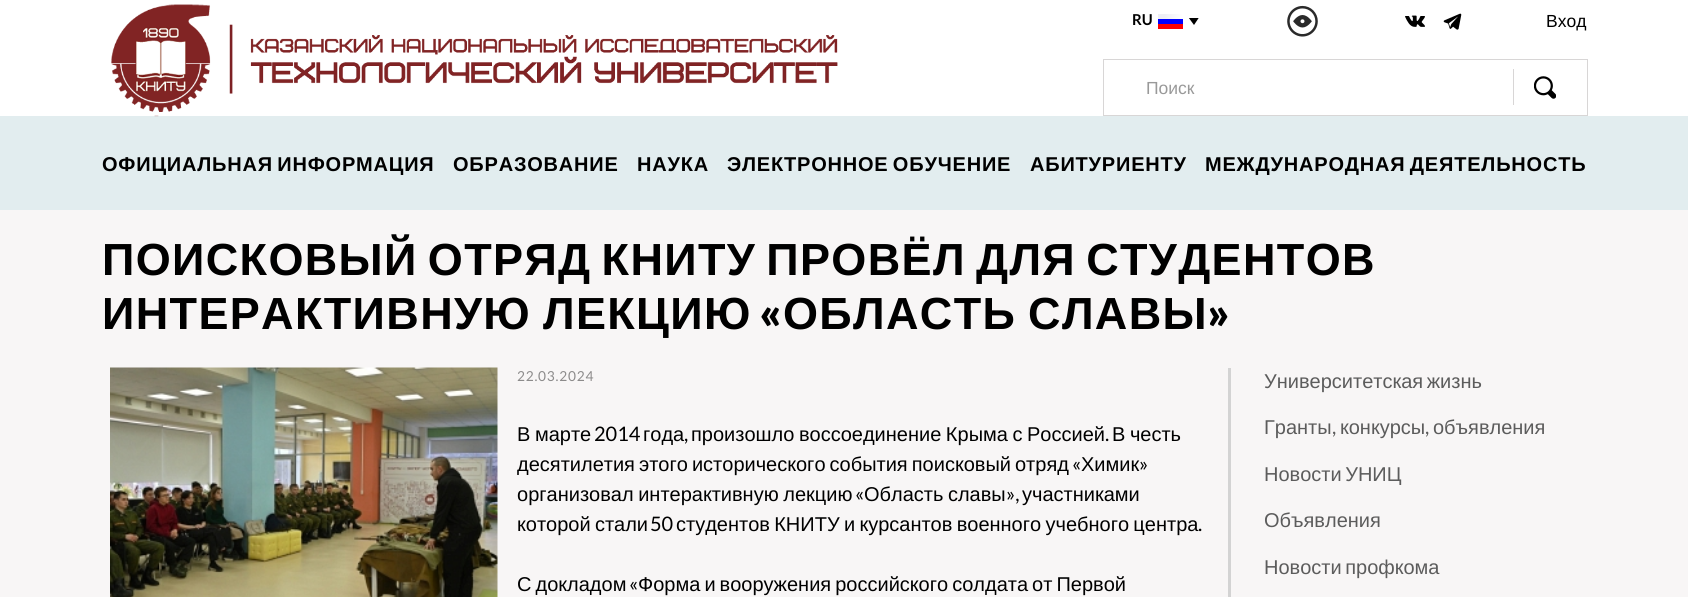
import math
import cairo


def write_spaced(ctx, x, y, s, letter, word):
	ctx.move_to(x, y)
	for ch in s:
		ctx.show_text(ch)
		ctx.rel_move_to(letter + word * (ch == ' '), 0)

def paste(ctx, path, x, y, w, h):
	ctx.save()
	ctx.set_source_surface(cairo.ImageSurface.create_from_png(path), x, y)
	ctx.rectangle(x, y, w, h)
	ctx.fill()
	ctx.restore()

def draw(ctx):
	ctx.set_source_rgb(1, 1, 1)
	ctx.paint()
	ctx.set_source_rgb(0.969, 0.961, 0.961)
	ctx.rectangle(0, 116, 1688, 481)
	ctx.fill()
	paste(ctx, 'media/1.png', 111, 4, 727, 113)
	ctx.select_font_face('Lato', cairo.FONT_SLANT_NORMAL, cairo.FONT_WEIGHT_BOLD)
	ctx.set_font_size(15)
	ctx.set_source_rgb(0, 0, 0)
	ctx.move_to(1132, 25)
	ctx.show_text('RU')
	ctx.set_source_rgb(0.996, 0, 0)
	ctx.rectangle(1158, 24, 25, 5)
	ctx.fill()
	ctx.set_source_rgb(0, 0, 0.996)
	ctx.rectangle(1158, 19, 25, 5)
	ctx.fill()
	gradient = cairo.LinearGradient(1164, 19, 1183, 19)
	gradient.add_color_stop_rgba(0, 0.933, 0.937, 0.957, 1)
	gradient.add_color_stop_rgba(1, 1, 1, 1, 1)
	ctx.set_source(gradient)
	ctx.rectangle(1158, 14, 25, 5)
	ctx.fill()
	ctx.save()
	ctx.rectangle(1188, 18, 12, 7)
	ctx.clip()
	ctx.set_source_rgb(0, 0, 0)
	ctx.new_path()
	ctx.move_to(1194, 25)
	ctx.line_to(1188.5, 17.5)
	ctx.line_to(1199, 17.5)
	ctx.close_path()
	ctx.fill()
	ctx.restore()
	paste(ctx, 'media/2.png', 1287, 5, 31, 32)
	paste(ctx, 'media/3.png', 1405, 15, 20, 12)
	paste(ctx, 'media/4.png', 1443, 13, 19, 17)
	ctx.select_font_face('Liberation Sans')
	ctx.set_font_size(17.5)
	ctx.set_source_rgb(0, 0, 0)
	ctx.move_to(1546, 27)
	ctx.show_text('Вход')
	ctx.rectangle(1103.5, 59.5, 484, 56)
	ctx.set_source_rgb(0.847, 0.839, 0.839)
	ctx.set_line_width(1)
	ctx.stroke()
	ctx.set_source_rgb(0.6, 0.6, 0.6)
	ctx.move_to(1146, 94)
	ctx.show_text('Поиск')
	ctx.set_source_rgb(0.847, 0.839, 0.839)
	ctx.rectangle(1513, 69, 1, 36)
	ctx.fill()
	paste(ctx, 'media/5.png', 1534, 76, 22, 23)
	ctx.set_source_rgba(0.757, 0.871, 0.894, 0.4)
	ctx.rectangle(0, 116, 1688, 94)
	ctx.fill()
	ctx.select_font_face('Liberation Sans', cairo.FONT_SLANT_NORMAL, cairo.FONT_WEIGHT_BOLD)
	ctx.set_font_size(20)
	ctx.set_source_rgb(0, 0, 0)
	write_spaced(ctx, 102, 171, 'ОФИЦИАЛЬНАЯ ИНФОРМАЦИЯ', 0.8, -2)
	write_spaced(ctx, 453, 171, 'ОБРАЗОВАНИЕ', 0.8, 0)
	write_spaced(ctx, 637, 171, 'НАУКА', 0.8, 0)
	write_spaced(ctx, 727, 171, 'ЭЛЕКТРОННОЕ ОБУЧЕНИЕ', 0.8, -2)
	write_spaced(ctx, 1030, 171, 'АБИТУРИЕНТУ', 0.8, 0)
	write_spaced(ctx, 1205, 171, 'МЕЖДУНАРОДНАЯ ДЕЯТЕЛЬНОСТЬ', 0.8, -2)
	ctx.set_font_size(45)
	write_spaced(ctx, 102, 275, 'ПОИСКОВЫЙ ОТРЯД КНИТУ ПРОВЁЛ ДЛЯ СТУДЕНТОВ', 1.35, -3.75)
	write_spaced(ctx, 102, 329, 'ИНТЕРАКТИВНУЮ ЛЕКЦИЮ', 1.35, -2)
	ctx.select_font_face('Lato Black')
	write_spaced(ctx, 759, 329, '«', 1.35, 0)
	ctx.select_font_face('Liberation Sans', cairo.FONT_SLANT_NORMAL, cairo.FONT_WEIGHT_BOLD)
	write_spaced(ctx, 783, 329, 'ОБЛАСТЬ СЛАВЫ', 1.35, -2)
	ctx.select_font_face('Lato Black')
	write_spaced(ctx, 1207, 329, '»', 1.35, 0)
	paste(ctx, 'media/6.png', 110, 367, 388, 230)
	ctx.select_font_face('Lato')
	ctx.set_font_size(13.75)
	ctx.set_source_rgb(0.549, 0.545, 0.545)
	write_spaced(ctx, 517, 381, '22.03.2024', 0.75, 0)
	ctx.select_font_face('Liberation Sans')
	ctx.set_font_size(20)
	ctx.set_source_rgb(0, 0, 0)
	write_spaced(ctx, 517, 441, 'В марте', 0, -1)
	ctx.select_font_face('Lato')
	ctx.move_to(594, 441)
	ctx.show_text('2014')
	ctx.select_font_face('Liberation Sans')
	ctx.move_to(643, 441)
	ctx.show_text('года')
	ctx.select_font_face('Lato')
	ctx.move_to(684, 441)
	ctx.show_text(',')
	ctx.select_font_face('Liberation Sans')
	write_spaced(ctx, 691, 441, 'произошло воссоединение Крыма с Россией', 0, -1)
	ctx.select_font_face('Lato')
	ctx.move_to(1105, 441)
	ctx.show_text('.')
	ctx.select_font_face('Liberation Sans')
	write_spaced(ctx, 1112, 441, 'В честь', 0, -1)
	write_spaced(ctx, 517, 471, 'десятилетия этого исторического события поисковый отряд', 0, -1.5)
	ctx.select_font_face('Lato')
	ctx.move_to(1072, 471)
	ctx.show_text('«')
	ctx.select_font_face('Liberation Sans')
	ctx.move_to(1081, 471)
	ctx.show_text('Химик')
	ctx.select_font_face('Lato')
	ctx.move_to(1139, 471)
	ctx.show_text('»')
	ctx.select_font_face('Liberation Sans')
	write_spaced(ctx, 517, 501, 'организовал интерактивную лекцию', 0, -1)
	ctx.select_font_face('Lato')
	ctx.move_to(855, 501)
	ctx.show_text('«')
	ctx.select_font_face('Liberation Sans')
	write_spaced(ctx, 864, 501, 'Область славы', 0, -1)
	ctx.select_font_face('Lato')
	ctx.move_to(1006, 501)
	ctx.show_text('»,')
	ctx.select_font_face('Liberation Sans')
	ctx.move_to(1022, 501)
	ctx.show_text('участниками')
	write_spaced(ctx, 517, 531, 'которой стали', 0, -1.25)
	ctx.select_font_face('Lato')
	ctx.move_to(650, 531)
	ctx.show_text('50')
	ctx.select_font_face('Liberation Sans')
	write_spaced(ctx, 676, 531, 'студентов КНИТУ и курсантов военного учебного центра', 0, -1.25)
	ctx.select_font_face('Lato')
	ctx.move_to(1198, 531)
	ctx.show_text('.')
	ctx.select_font_face('Liberation Sans')
	write_spaced(ctx, 517, 591, 'С докладом', 0, -1.5)
	ctx.select_font_face('Lato')
	ctx.move_to(629, 591)
	ctx.show_text('«')
	ctx.select_font_face('Liberation Sans')
	write_spaced(ctx, 638, 591, 'Форма и вооружения российского солдата от Первой', 0, -1.5)
	ctx.set_source_rgb(0.827, 0.827, 0.827)
	ctx.rectangle(1228, 368, 3, 229)
	ctx.fill()
	ctx.set_source_rgb(0.361, 0.361, 0.361)
	write_spaced(ctx, 1264, 388, 'Университетская жизнь', 0, -2)
	ctx.move_to(1264, 434)
	ctx.show_text('Гранты')
	ctx.select_font_face('Lato')
	ctx.move_to(1332, 434)
	ctx.show_text(',')
	ctx.select_font_face('Liberation Sans')
	ctx.move_to(1340, 434)
	ctx.show_text('конкурсы')
	ctx.select_font_face('Lato')
	ctx.move_to(1425, 434)
	ctx.show_text(',')
	ctx.select_font_face('Liberation Sans')
	ctx.move_to(1433, 434)
	ctx.show_text('объявления')
	write_spaced(ctx, 1264, 481, 'Новости УНИЦ', 0, -2)
	ctx.move_to(1264, 527)
	ctx.show_text('Объявления')
	write_spaced(ctx, 1264, 574, 'Новости профкома', 0, -2)


surface = cairo.ImageSurface(cairo.FORMAT_RGB24, 1688, 597)
ctx = cairo.Context(surface)
options = cairo.FontOptions()
options.set_hint_metrics(cairo.HINT_METRICS_OFF)
options.set_hint_style(cairo.HINT_STYLE_NONE)
ctx.set_font_options(options)
ctx.set_miter_limit(4)
draw(ctx)
surface.write_to_png('image.png')
